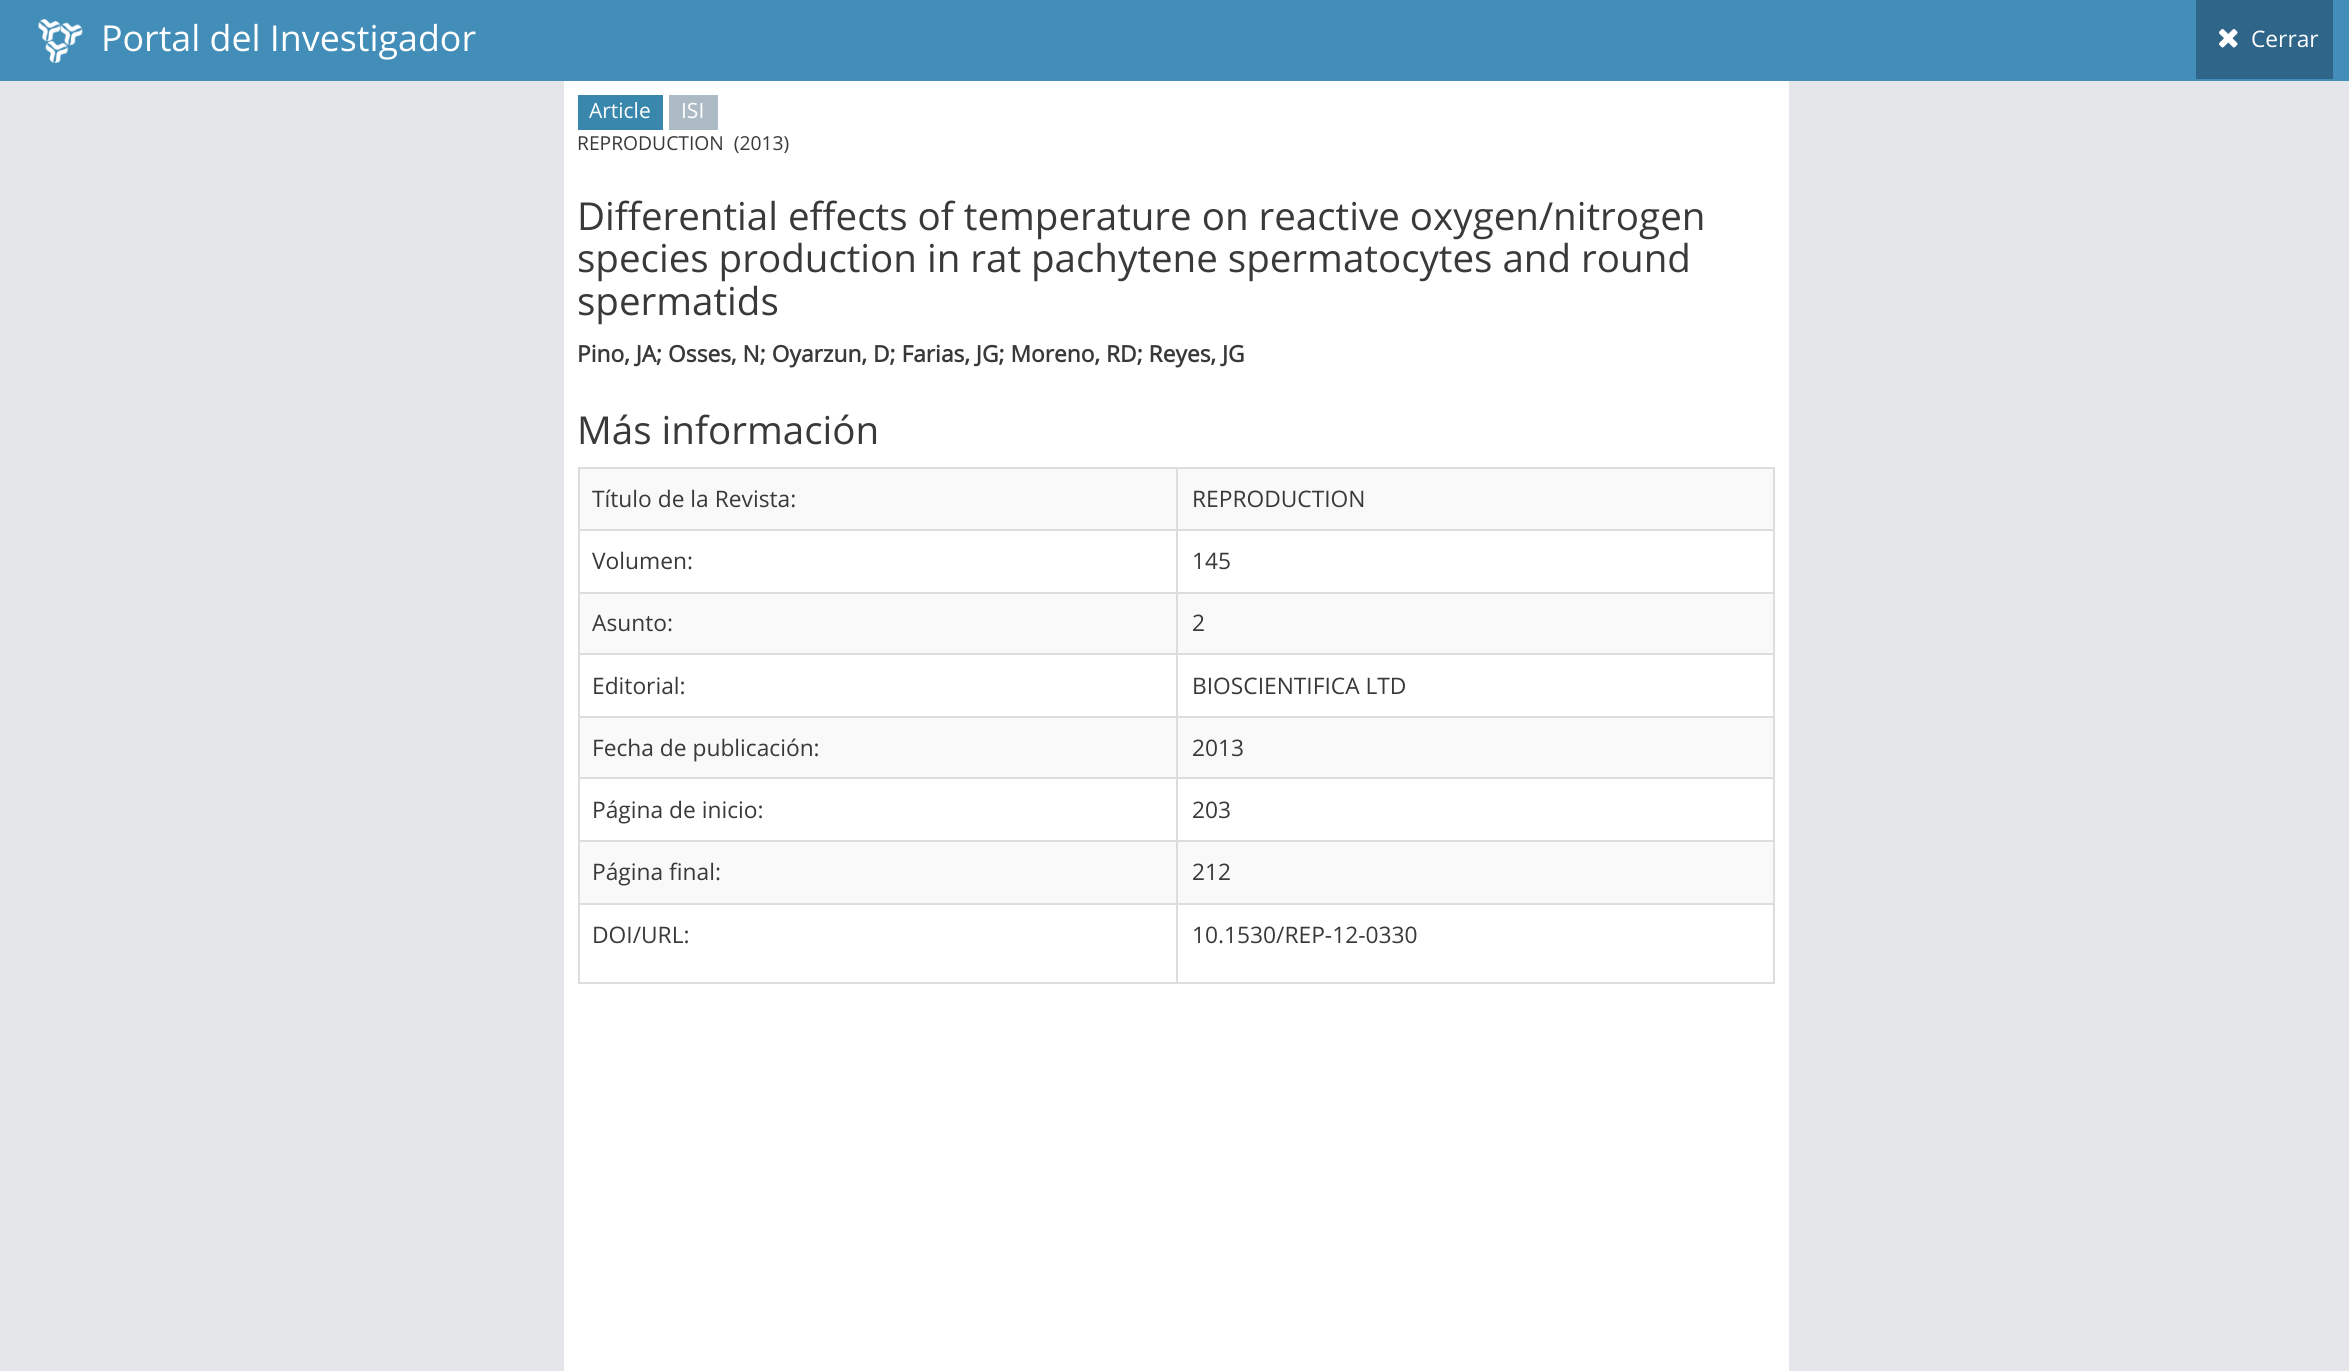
import math
import cairo


def paste(ctx, path, x, y, w, h):
	ctx.save()
	ctx.set_source_surface(cairo.ImageSurface.create_from_png(path), x, y)
	ctx.rectangle(x, y, w, h)
	ctx.fill()
	ctx.restore()

def draw(ctx):
	ctx.set_source_rgb(0.894, 0.902, 0.914)
	ctx.paint()
	ctx.set_source_rgb(0.263, 0.557, 0.725)
	ctx.rectangle(0, 0, 2349, 81)
	ctx.fill()
	paste(ctx, 'media/1.png', 38, 19, 45, 44)
	ctx.select_font_face('Open Sans')
	ctx.set_font_size(35.75)
	ctx.set_source_rgb(1, 1, 1)
	ctx.move_to(101, 51)
	ctx.show_text('Portal del Investigador')
	ctx.set_source_rgb(0.18, 0.396, 0.537)
	ctx.rectangle(2196, 0, 137, 79)
	ctx.fill()
	paste(ctx, 'media/2.png', 2219, 29, 19, 19)
	ctx.set_font_size(22.75)
	ctx.set_source_rgb(1, 1, 1)
	ctx.move_to(2251, 47)
	ctx.show_text('Cerrar')
	ctx.rectangle(564, 81, 1225, 1290)
	ctx.fill()
	ctx.set_source_rgb(0.227, 0.529, 0.678)
	ctx.rectangle(578, 95, 85, 35)
	ctx.fill()
	ctx.set_font_size(21)
	ctx.set_source_rgb(1, 1, 1)
	ctx.move_to(589, 118)
	ctx.show_text('Article')
	ctx.set_source_rgb(0.671, 0.729, 0.765)
	ctx.rectangle(669, 95, 49, 35)
	ctx.fill()
	ctx.set_source_rgb(1, 1, 1)
	ctx.move_to(681, 118)
	ctx.show_text('ISI')
	ctx.set_font_size(19.25)
	ctx.set_source_rgb(0.224, 0.224, 0.224)
	ctx.move_to(577, 150)
	ctx.show_text('REPRODUCTION  (2013)')
	ctx.set_font_size(38.5)
	for x, y, s in [
		(577, 230, 'Differential effects of temperature on reactive oxygen/nitrogen'),
		(577, 272, 'species production in rat pachytene spermatocytes and round'),
		(577, 315, 'spermatids'),
	]:
		ctx.move_to(x, y)
		ctx.show_text(s)
	ctx.select_font_face('Open Sans', cairo.FONT_SLANT_NORMAL, cairo.FONT_WEIGHT_BOLD)
	ctx.set_font_size(22.75)
	ctx.move_to(577, 362)
	ctx.show_text('Pino, JA; Osses, N; Oyarzun, D; Farias, JG; Moreno, RD; Reyes, JG')
	ctx.select_font_face('Open Sans')
	ctx.set_font_size(38.5)
	ctx.move_to(577, 444)
	ctx.show_text('Más información')
	ctx.set_source_rgb(0.867, 0.867, 0.867)
	ctx.rectangle(578, 467, 1197, 2)
	ctx.rectangle(1773, 467, 2, 517)
	ctx.rectangle(578, 982, 1197, 2)
	ctx.rectangle(578, 467, 2, 517)
	ctx.fill()
	ctx.set_source_rgb(0.976, 0.976, 0.976)
	ctx.rectangle(580, 469, 1193, 60)
	ctx.fill()
	ctx.set_font_size(22.75)
	ctx.set_source_rgb(0.224, 0.224, 0.224)
	ctx.move_to(592, 507)
	ctx.show_text('Título de la Revista:')
	ctx.set_source_rgb(0.867, 0.867, 0.867)
	ctx.rectangle(1176, 529, 599, 2)
	ctx.rectangle(1176, 592, 599, 2)
	ctx.fill()
	ctx.set_source_rgb(0.976, 0.976, 0.976)
	ctx.rectangle(580, 594, 1193, 59)
	ctx.fill()
	ctx.set_source_rgb(0.867, 0.867, 0.867)
	ctx.rectangle(1176, 653, 599, 2)
	ctx.rectangle(1176, 716, 599, 2)
	ctx.fill()
	ctx.set_source_rgb(0.976, 0.976, 0.976)
	ctx.rectangle(580, 718, 1193, 59)
	ctx.fill()
	ctx.set_source_rgb(0.867, 0.867, 0.867)
	ctx.rectangle(1176, 777, 599, 2)
	ctx.rectangle(1176, 840, 599, 2)
	ctx.fill()
	ctx.set_source_rgb(0.976, 0.976, 0.976)
	ctx.rectangle(580, 842, 1193, 61)
	ctx.fill()
	ctx.set_source_rgb(0.867, 0.867, 0.867)
	ctx.rectangle(1176, 903, 599, 2)
	ctx.rectangle(1176, 903, 2, 81)
	ctx.rectangle(578, 903, 600, 2)
	ctx.rectangle(1176, 840, 2, 65)
	ctx.rectangle(578, 840, 600, 2)
	ctx.rectangle(1176, 777, 2, 65)
	ctx.rectangle(578, 777, 600, 2)
	ctx.rectangle(1176, 716, 2, 63)
	ctx.rectangle(578, 716, 600, 2)
	ctx.rectangle(1176, 653, 2, 65)
	ctx.rectangle(578, 653, 600, 2)
	ctx.rectangle(1176, 592, 2, 63)
	ctx.rectangle(578, 592, 600, 2)
	ctx.rectangle(1176, 529, 2, 64)
	ctx.rectangle(578, 529, 600, 2)
	ctx.rectangle(1176, 467, 2, 63)
	ctx.fill()
	ctx.set_source_rgb(0.224, 0.224, 0.224)
	for x, y, s in [
		(1192, 507, 'REPRODUCTION'),
		(592, 569, 'Volumen:'),
		(1192, 569, '145'),
		(592, 631, 'Asunto:'),
		(1192, 631, '2'),
		(592, 694, 'Editorial:'),
		(1192, 694, 'BIOSCIENTIFICA LTD'),
		(592, 756, 'Fecha de publicación:'),
		(1192, 756, '2013'),
		(592, 818, 'Página de inicio:'),
		(1192, 818, '203'),
		(592, 880, 'Página final:'),
		(1192, 880, '212'),
		(592, 943, 'DOI/URL:'),
		(1192, 943, '10.1530/REP-12-0330'),
	]:
		ctx.move_to(x, y)
		ctx.show_text(s)


surface = cairo.ImageSurface(cairo.FORMAT_RGB24, 2349, 1371)
ctx = cairo.Context(surface)
options = cairo.FontOptions()
options.set_hint_metrics(cairo.HINT_METRICS_OFF)
options.set_hint_style(cairo.HINT_STYLE_NONE)
ctx.set_font_options(options)
ctx.set_miter_limit(4)
draw(ctx)
surface.write_to_png('image.png')
